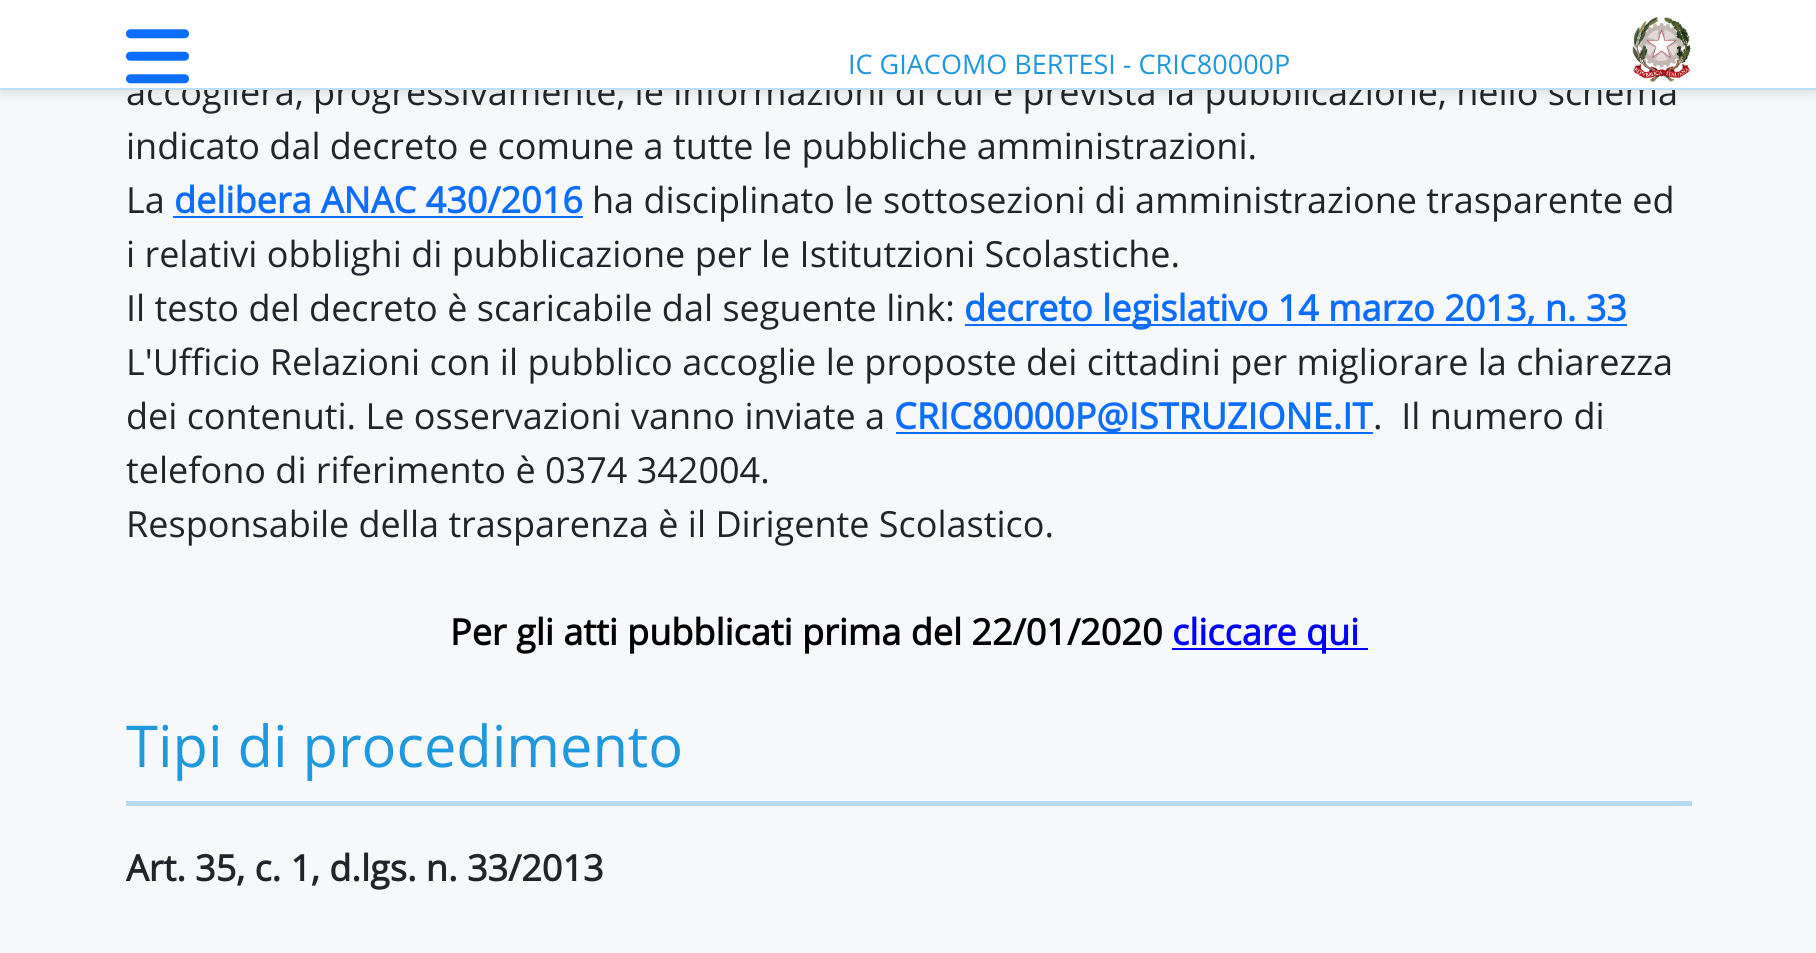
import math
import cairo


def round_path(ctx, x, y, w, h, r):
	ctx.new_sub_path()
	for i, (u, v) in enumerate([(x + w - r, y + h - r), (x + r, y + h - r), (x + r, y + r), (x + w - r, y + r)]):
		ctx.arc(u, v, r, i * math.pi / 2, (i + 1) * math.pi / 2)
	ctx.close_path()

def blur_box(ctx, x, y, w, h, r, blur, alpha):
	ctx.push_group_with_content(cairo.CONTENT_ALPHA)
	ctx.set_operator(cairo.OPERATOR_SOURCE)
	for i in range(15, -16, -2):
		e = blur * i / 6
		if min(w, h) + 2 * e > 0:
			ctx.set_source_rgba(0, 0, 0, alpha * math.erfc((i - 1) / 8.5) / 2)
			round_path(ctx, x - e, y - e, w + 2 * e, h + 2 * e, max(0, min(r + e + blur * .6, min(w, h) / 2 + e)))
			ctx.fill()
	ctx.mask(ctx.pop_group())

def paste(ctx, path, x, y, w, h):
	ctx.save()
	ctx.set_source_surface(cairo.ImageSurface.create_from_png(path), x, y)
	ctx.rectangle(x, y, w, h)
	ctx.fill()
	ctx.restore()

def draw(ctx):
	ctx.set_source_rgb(0.961, 0.969, 0.98)
	ctx.paint()
	ctx.set_source_rgb(0, 0, 0)
	blur_box(ctx, 0, 0, 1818, 90, 0, 8, 0.15)
	ctx.select_font_face('Open Sans')
	ctx.set_font_size(36)
	ctx.set_source_rgb(0.129, 0.145, 0.161)
	ctx.move_to(126, 105)
	ctx.show_text('accoglierà, progressivamente, le informazioni di cui è prevista la pubblicazione, nello schema')
	ctx.set_source_rgb(0.996, 0.996, 0.996)
	ctx.rectangle(0, 0, 1816, 88)
	ctx.fill()
	ctx.set_source_rgb(0.733, 0.875, 0.957)
	ctx.rectangle(0, 88, 1816, 2)
	ctx.fill()
	paste(ctx, 'media/1.png', 126, 29, 63, 55)
	ctx.set_font_size(27)
	ctx.set_source_rgb(0.122, 0.596, 0.871)
	ctx.move_to(848, 74)
	ctx.show_text('IC GIACOMO BERTESI - CRIC80000P')
	paste(ctx, 'media/2.png', 1631, 16, 61, 67)
	ctx.set_font_size(36)
	ctx.set_source_rgb(0.129, 0.145, 0.161)
	ctx.move_to(126, 159)
	ctx.show_text('indicato dal decreto e comune a tutte le pubbliche amministrazioni.')
	ctx.move_to(126, 213)
	ctx.show_text('La')
	ctx.select_font_face('Open Sans', cairo.FONT_SLANT_NORMAL, cairo.FONT_WEIGHT_BOLD)
	ctx.set_source_rgb(0.051, 0.431, 0.992)
	ctx.move_to(174, 213)
	ctx.show_text('delibera ANAC 430/2016')
	ctx.rectangle(173, 216, 410, 2)
	ctx.fill()
	ctx.select_font_face('Open Sans')
	ctx.set_source_rgb(0.129, 0.145, 0.161)
	for x, y, s in [
		(592, 213, 'ha disciplinato le sottosezioni di amministrazione trasparente ed'),
		(126, 267, 'i relativi obblighi di pubblicazione per le Istitutzioni Scolastiche.'),
		(126, 321, 'Il testo del decreto è scaricabile dal seguente link:'),
	]:
		ctx.move_to(x, y)
		ctx.show_text(s)
	ctx.set_source_rgb(0.051, 0.431, 0.992)
	ctx.rectangle(965, 324, 662, 2)
	ctx.fill()
	ctx.select_font_face('Open Sans', cairo.FONT_SLANT_NORMAL, cairo.FONT_WEIGHT_BOLD)
	ctx.move_to(964, 321)
	ctx.show_text('decreto legislativo 14 marzo 2013, n. 33')
	ctx.select_font_face('Open Sans')
	ctx.set_source_rgb(0.129, 0.145, 0.161)
	ctx.move_to(126, 375)
	ctx.show_text('L\'Ufficio Relazioni con il pubblico accoglie le proposte dei cittadini per migliorare la chiarezza')
	ctx.move_to(126, 429)
	ctx.show_text('dei contenuti. Le osservazioni vanno inviate a')
	ctx.set_source_rgb(0.051, 0.431, 0.992)
	ctx.rectangle(896, 432, 477, 2)
	ctx.fill()
	ctx.select_font_face('Open Sans', cairo.FONT_SLANT_NORMAL, cairo.FONT_WEIGHT_BOLD)
	ctx.move_to(894, 429)
	ctx.show_text('CRIC80000P@ISTRUZIONE.IT')
	ctx.select_font_face('Open Sans')
	ctx.set_source_rgb(0.129, 0.145, 0.161)
	for x, y, s in [
		(1373, 429, '.  Il numero di'),
		(126, 483, 'telefono di riferimento è 0374 342004.'),
		(126, 537, 'Responsabile della trasparenza è il Dirigente Scolastico.'),
	]:
		ctx.move_to(x, y)
		ctx.show_text(s)
	ctx.select_font_face('Open Sans', cairo.FONT_SLANT_NORMAL, cairo.FONT_WEIGHT_BOLD)
	ctx.set_source_rgb(0, 0, 0)
	ctx.move_to(450, 645)
	ctx.show_text('Per gli atti pubblicati prima del 22/01/2020')
	ctx.set_source_rgb(0, 0, 1)
	ctx.rectangle(1172, 648, 196, 2)
	ctx.fill()
	ctx.move_to(1172, 645)
	ctx.show_text('cliccare qui')
	ctx.set_source_rgb(0.71, 0.859, 0.949)
	ctx.rectangle(126, 801, 1566, 5)
	ctx.fill()
	ctx.select_font_face('Open Sans')
	ctx.set_font_size(57.75)
	ctx.set_source_rgb(0.122, 0.596, 0.871)
	ctx.move_to(126, 767)
	ctx.show_text('Tipi di procedimento')
	ctx.select_font_face('Open Sans', cairo.FONT_SLANT_NORMAL, cairo.FONT_WEIGHT_BOLD)
	ctx.set_font_size(36)
	ctx.set_source_rgb(0.129, 0.145, 0.161)
	ctx.move_to(126, 881)
	ctx.show_text('Art. 35, c. 1, d.lgs. n. 33/2013')


surface = cairo.ImageSurface(cairo.FORMAT_RGB24, 1816, 953)
ctx = cairo.Context(surface)
options = cairo.FontOptions()
options.set_hint_metrics(cairo.HINT_METRICS_OFF)
options.set_hint_style(cairo.HINT_STYLE_NONE)
ctx.set_font_options(options)
ctx.set_miter_limit(4)
draw(ctx)
surface.write_to_png('image.png')
